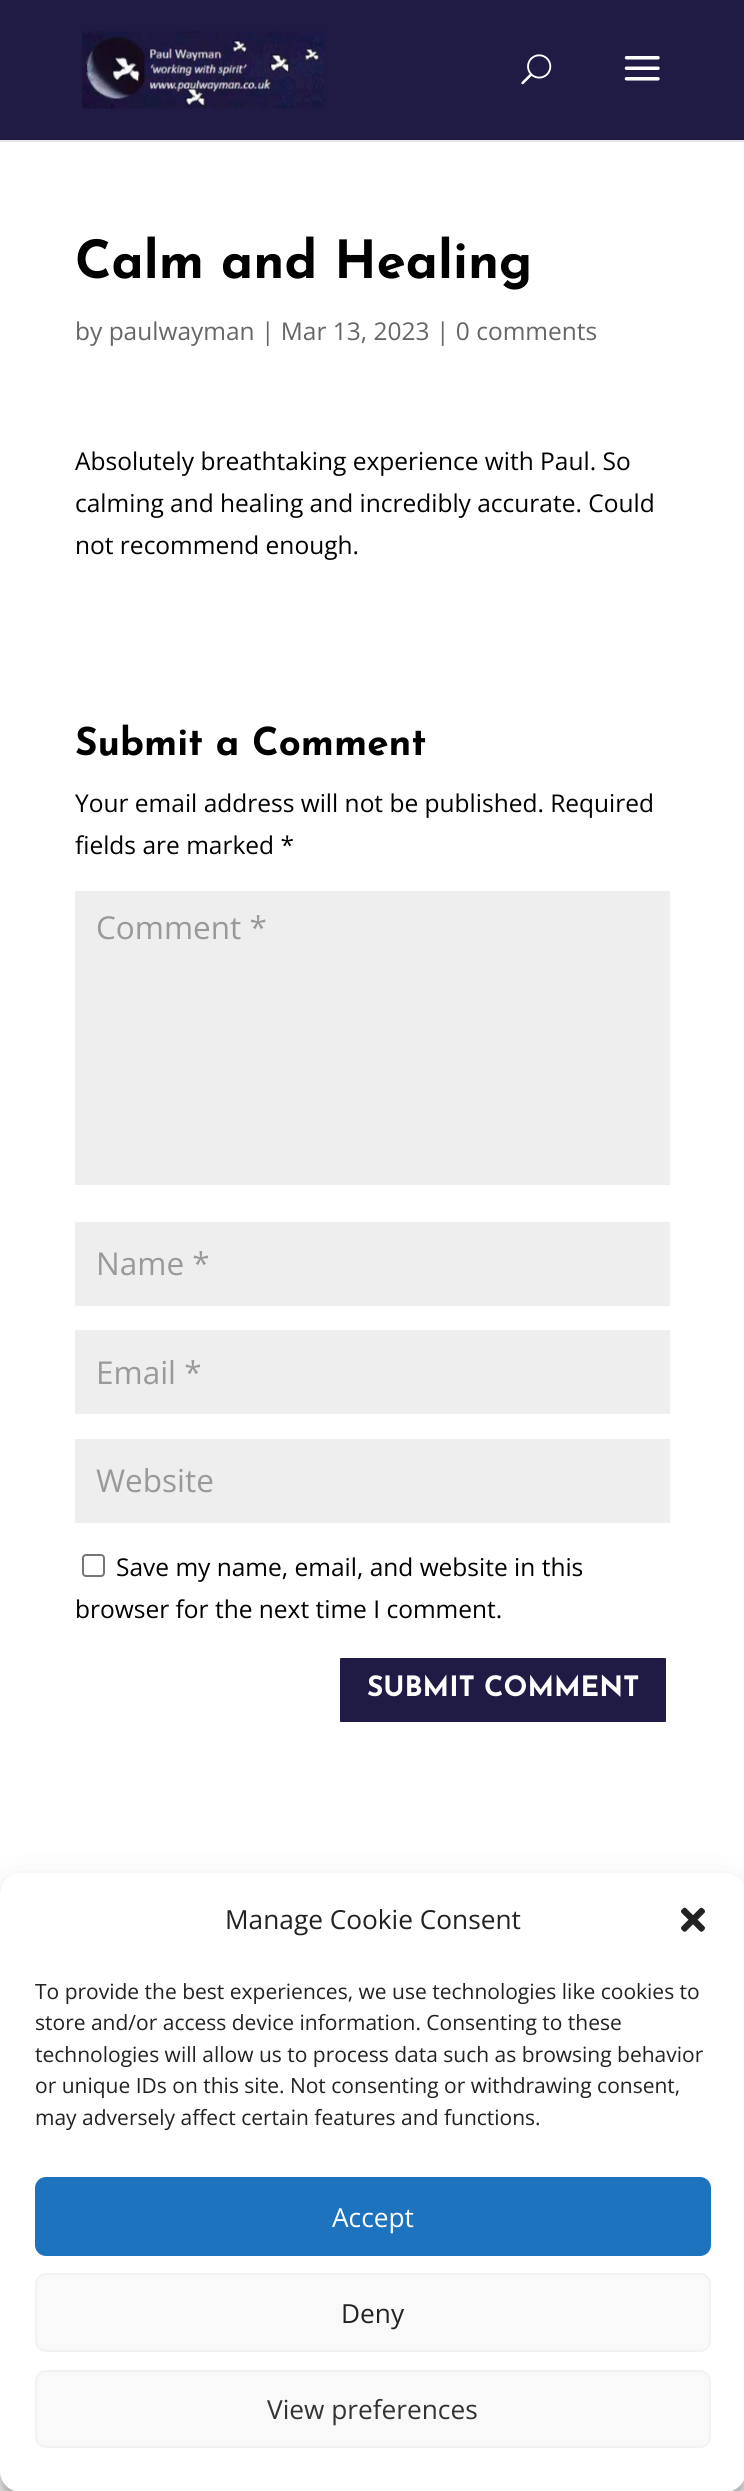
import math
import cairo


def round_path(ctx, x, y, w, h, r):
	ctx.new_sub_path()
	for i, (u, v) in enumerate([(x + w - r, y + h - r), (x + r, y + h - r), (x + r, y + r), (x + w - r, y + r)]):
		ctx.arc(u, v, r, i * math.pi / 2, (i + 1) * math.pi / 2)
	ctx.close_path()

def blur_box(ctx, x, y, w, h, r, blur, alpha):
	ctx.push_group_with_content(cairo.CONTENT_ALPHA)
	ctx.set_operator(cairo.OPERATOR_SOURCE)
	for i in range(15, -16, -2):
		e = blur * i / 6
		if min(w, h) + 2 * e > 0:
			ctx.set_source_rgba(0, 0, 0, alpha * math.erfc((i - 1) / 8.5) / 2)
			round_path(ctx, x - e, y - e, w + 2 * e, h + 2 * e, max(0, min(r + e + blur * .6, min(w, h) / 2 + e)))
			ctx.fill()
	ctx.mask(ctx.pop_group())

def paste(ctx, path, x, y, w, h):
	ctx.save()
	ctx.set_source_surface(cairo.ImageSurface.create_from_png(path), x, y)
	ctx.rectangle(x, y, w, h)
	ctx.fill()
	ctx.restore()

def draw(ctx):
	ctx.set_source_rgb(1, 1, 1)
	ctx.paint()
	ctx.set_source_rgb(0.902, 0.902, 0.902)
	ctx.new_path()
	ctx.move_to(0, 140)
	ctx.line_to(0, 142)
	ctx.line_to(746, 142)
	ctx.line_to(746, 2)
	ctx.line_to(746, 140)
	ctx.close_path()
	ctx.fill()
	ctx.set_source_rgb(0.125, 0.106, 0.267)
	ctx.rectangle(0, 0, 744, 140)
	ctx.fill()
	paste(ctx, 'media/1.png', 82, 31, 242, 78)
	paste(ctx, 'media/2.png', 521, 54, 31, 31)
	paste(ctx, 'media/3.png', 624, 56, 36, 25)
	ctx.select_font_face('Josefin Sans', cairo.FONT_SLANT_NORMAL, cairo.FONT_WEIGHT_BOLD)
	ctx.set_font_size(52.5)
	ctx.set_source_rgb(0, 0, 0)
	ctx.move_to(75, 278)
	ctx.show_text('Calm and Healing')
	ctx.select_font_face('Open Sans')
	ctx.set_font_size(24.5)
	ctx.set_source_rgb(0.4, 0.4, 0.4)
	ctx.move_to(75, 340)
	ctx.show_text('by paulwayman | Mar 13, 2023 | 0 comments')
	ctx.set_source_rgb(0, 0, 0)
	for x, y, s in [
		(75, 470, 'Absolutely breathtaking experience with Paul. So'),
		(75, 512, 'calming and healing and incredibly accurate. Could'),
		(75, 554, 'not recommend enough.'),
	]:
		ctx.move_to(x, y)
		ctx.show_text(s)
	ctx.select_font_face('Josefin Sans', cairo.FONT_SLANT_NORMAL, cairo.FONT_WEIGHT_BOLD)
	ctx.set_font_size(38.5)
	ctx.move_to(75, 755)
	ctx.show_text('Submit a Comment')
	ctx.select_font_face('Open Sans')
	ctx.set_font_size(24.5)
	ctx.move_to(75, 812)
	ctx.show_text('Your email address will not be published. Required')
	ctx.move_to(75, 854)
	ctx.show_text('fields are marked *')
	ctx.set_source_rgb(0.933, 0.933, 0.933)
	ctx.rectangle(75, 891, 595, 294)
	ctx.fill()
	ctx.set_font_size(31.5)
	ctx.set_source_rgb(0.6, 0.6, 0.6)
	ctx.move_to(96, 939)
	ctx.show_text('Comment *')
	ctx.set_source_rgb(0.933, 0.933, 0.933)
	ctx.rectangle(75, 1222, 595, 84)
	ctx.fill()
	ctx.set_source_rgb(0.6, 0.6, 0.6)
	ctx.move_to(96, 1275)
	ctx.show_text('Name *')
	ctx.set_source_rgb(0.933, 0.933, 0.933)
	ctx.rectangle(75, 1330, 595, 84)
	ctx.fill()
	ctx.set_source_rgb(0.6, 0.6, 0.6)
	ctx.move_to(96, 1384)
	ctx.show_text('Email *')
	ctx.set_source_rgb(0.933, 0.933, 0.933)
	ctx.rectangle(75, 1439, 595, 84)
	ctx.fill()
	ctx.set_source_rgb(0.6, 0.6, 0.6)
	ctx.move_to(96, 1492)
	ctx.show_text('Website')
	round_path(ctx, 83, 1555, 21, 21, 3)
	ctx.set_source_rgb(0.463, 0.463, 0.463)
	ctx.stroke()
	ctx.set_font_size(24.5)
	ctx.set_source_rgb(0, 0, 0)
	ctx.move_to(116, 1576)
	ctx.show_text('Save my name, email, and website in this')
	ctx.move_to(75, 1618)
	ctx.show_text('browser for the next time I comment.')
	ctx.set_source_rgb(0.125, 0.106, 0.267)
	round_path(ctx, 338, 1656, 330, 68, 3)
	ctx.fill_preserve()
	ctx.set_source_rgb(1, 1, 1)
	ctx.set_line_width(4)
	ctx.stroke()
	ctx.select_font_face('Josefin Sans', cairo.FONT_SLANT_NORMAL, cairo.FONT_WEIGHT_BOLD)
	ctx.set_font_size(28)
	ctx.move_to(367, 1696)
	ctx.show_text('SUBMIT COMMENT')
	ctx.set_source_rgb(0, 0, 0)
	blur_box(ctx, 0, 1883, 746, 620, 21, 5, 0.23)
	blur_box(ctx, 0, 1890, 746, 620, 21, 17.5, 0.19)
	ctx.set_source_rgb(1, 1, 1)
	round_path(ctx, 0, 1873, 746, 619, 21)
	ctx.fill()
	ctx.select_font_face('Open Sans')
	ctx.set_font_size(26.25)
	ctx.set_source_rgb(0.133, 0.133, 0.133)
	ctx.move_to(225, 1929)
	ctx.show_text('Manage Cookie Consent')
	paste(ctx, 'media/4.png', 681, 1907, 24, 25)
	ctx.set_font_size(21)
	for x, y, s in [
		(35, 1999, 'To provide the best experiences, we use technologies like cookies to'),
		(35, 2030, 'store and/or access device information. Consenting to these'),
		(35, 2062, 'technologies will allow us to process data such as browsing behavior'),
		(35, 2093, 'or unique IDs on this site. Not consenting or withdrawing consent,'),
		(35, 2125, 'may adversely affect certain features and functions.'),
	]:
		ctx.move_to(x, y)
		ctx.show_text(s)
	ctx.set_source_rgb(0.118, 0.451, 0.745)
	round_path(ctx, 36, 2178, 674, 77, 10)
	ctx.fill_preserve()
	ctx.set_line_width(2)
	ctx.stroke()
	ctx.set_font_size(26.25)
	ctx.set_source_rgb(1, 1, 1)
	ctx.move_to(332, 2227)
	ctx.show_text('Accept')
	ctx.set_source_rgb(0.976, 0.976, 0.976)
	round_path(ctx, 36, 2274, 674, 77, 10)
	ctx.fill_preserve()
	ctx.set_source_rgb(0.949, 0.949, 0.949)
	ctx.stroke()
	ctx.set_source_rgb(0.133, 0.133, 0.133)
	ctx.move_to(341, 2323)
	ctx.show_text('Deny')
	ctx.set_source_rgb(0.976, 0.976, 0.976)
	round_path(ctx, 36, 2371, 674, 76, 10)
	ctx.fill_preserve()
	ctx.set_source_rgb(0.949, 0.949, 0.949)
	ctx.stroke()
	ctx.set_source_rgb(0.2, 0.2, 0.2)
	ctx.move_to(267, 2419)
	ctx.show_text('View preferences')


surface = cairo.ImageSurface(cairo.FORMAT_RGB24, 744, 2491)
ctx = cairo.Context(surface)
options = cairo.FontOptions()
options.set_hint_metrics(cairo.HINT_METRICS_OFF)
options.set_hint_style(cairo.HINT_STYLE_NONE)
ctx.set_font_options(options)
ctx.set_miter_limit(4)
draw(ctx)
surface.write_to_png('image.png')
